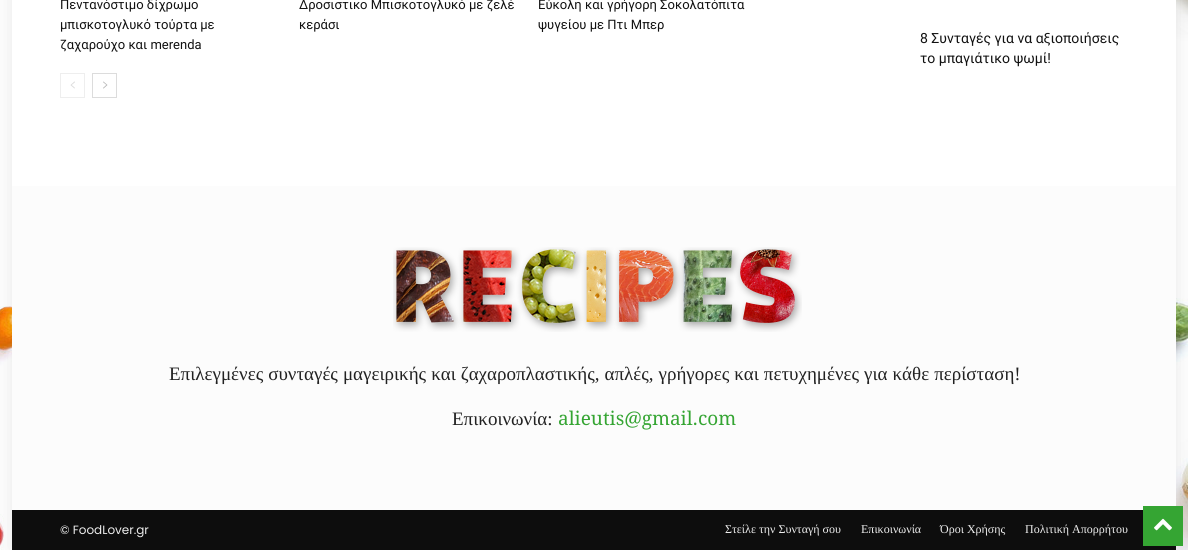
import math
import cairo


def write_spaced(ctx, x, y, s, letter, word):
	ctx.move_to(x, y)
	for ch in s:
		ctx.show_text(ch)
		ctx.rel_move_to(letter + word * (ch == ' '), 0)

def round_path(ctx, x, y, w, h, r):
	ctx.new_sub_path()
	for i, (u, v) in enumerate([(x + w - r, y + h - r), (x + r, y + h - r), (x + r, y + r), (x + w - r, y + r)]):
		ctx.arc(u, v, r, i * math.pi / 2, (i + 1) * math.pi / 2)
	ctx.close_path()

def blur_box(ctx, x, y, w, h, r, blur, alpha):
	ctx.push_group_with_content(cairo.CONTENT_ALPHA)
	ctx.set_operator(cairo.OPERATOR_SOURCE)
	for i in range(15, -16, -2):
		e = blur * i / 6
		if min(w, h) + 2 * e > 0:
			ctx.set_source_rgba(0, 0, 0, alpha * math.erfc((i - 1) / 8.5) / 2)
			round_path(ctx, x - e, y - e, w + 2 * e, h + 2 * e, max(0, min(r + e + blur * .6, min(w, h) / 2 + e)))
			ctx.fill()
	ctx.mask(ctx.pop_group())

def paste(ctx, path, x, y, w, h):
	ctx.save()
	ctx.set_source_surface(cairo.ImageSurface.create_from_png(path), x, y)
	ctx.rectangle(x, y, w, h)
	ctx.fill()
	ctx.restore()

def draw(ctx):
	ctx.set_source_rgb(1, 1, 1)
	ctx.paint()
	paste(ctx, 'media/1.png', 0, 0, 1188, 550)
	ctx.set_source_rgb(0, 0, 0)
	blur_box(ctx, 12, -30, 1164, 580, 0, 10, 0.1)
	ctx.set_source_rgb(1, 1, 1)
	ctx.rectangle(12, 0, 1164, 186)
	ctx.fill()
	ctx.select_font_face('Roboto')
	ctx.set_font_size(13)
	ctx.set_source_rgb(0.067, 0.067, 0.067)
	for x, y, s in [
		(60, 9, 'Πεντανόστιμο δίχρωμο'),
		(60, 29, 'μπισκοτογλυκό τούρτα με'),
		(60, 49, 'ζαχαρούχο και merenda'),
		(299, 9, 'Δροσιστικο Μπισκοτογλυκό με ζελέ'),
		(299, 29, 'κεράσι'),
		(538, 9, 'Εύκολη και γρήγορη Σοκολατόπιτα'),
		(538, 29, 'ψυγείου με Πτι Μπερ'),
	]:
		ctx.move_to(x, y)
		ctx.show_text(s)
	ctx.rectangle(60.5, 73.5, 24, 24)
	ctx.set_source_rgb(0.933, 0.933, 0.933)
	ctx.set_line_width(1)
	ctx.stroke()
	paste(ctx, 'media/2.png', 70, 81, 5, 8)
	ctx.rectangle(92.5, 73.5, 24, 24)
	ctx.set_source_rgb(0.863, 0.863, 0.863)
	ctx.stroke()
	paste(ctx, 'media/3.png', 103, 81, 5, 8)
	ctx.set_font_size(14)
	ctx.set_source_rgb(0.067, 0.067, 0.067)
	ctx.move_to(920, 43)
	ctx.show_text('8 Συνταγές για να αξιοποιήσεις')
	ctx.move_to(920, 63)
	ctx.show_text('το μπαγιάτικο ψωμί!')
	ctx.set_source_rgb(0.988, 0.988, 0.988)
	ctx.rectangle(12, 186, 1164, 324)
	ctx.fill()
	paste(ctx, 'media/4.png', 393, 247, 409, 85)
	ctx.select_font_face('Liberation Serif')
	ctx.set_font_size(19)
	ctx.set_source_rgb(0.133, 0.133, 0.133)
	write_spaced(ctx, 169, 380, 'Επιλεγμένες συνταγές μαγειρικής και ζαχαροπλαστικής, απλές, γρήγορες και πετυχημένες για κάθε περίσταση!', 0, 0.25)
	ctx.move_to(452, 425)
	ctx.show_text('Επικοινωνία:')
	ctx.select_font_face('Droid Serif')
	ctx.set_source_rgb(0.208, 0.647, 0.2)
	ctx.move_to(558, 425)
	ctx.show_text('alieutis@gmail.com')
	ctx.set_source_rgb(0.051, 0.051, 0.051)
	ctx.rectangle(12, 510, 1164, 40)
	ctx.fill()
	ctx.select_font_face('Poppins')
	ctx.set_font_size(12)
	ctx.set_source_rgb(0.929, 0.929, 0.929)
	ctx.move_to(60, 534)
	ctx.show_text('© FoodLover.gr')
	ctx.select_font_face('Liberation Serif')
	for x, y, s in [
		(725, 533, 'Στείλε την Συνταγή σου'),
		(861, 533, 'Επικοινωνία'),
		(940, 533, 'Όροι Χρήσης'),
		(1025, 533, 'Πολιτική Απορρήτου'),
	]:
		ctx.move_to(x, y)
		ctx.show_text(s)
	ctx.set_source_rgb(0.208, 0.647, 0.2)
	ctx.rectangle(1143, 506, 40, 40)
	ctx.fill()
	paste(ctx, 'media/5.png', 1154, 518, 18, 13)


surface = cairo.ImageSurface(cairo.FORMAT_RGB24, 1188, 550)
ctx = cairo.Context(surface)
options = cairo.FontOptions()
options.set_hint_metrics(cairo.HINT_METRICS_OFF)
options.set_hint_style(cairo.HINT_STYLE_NONE)
ctx.set_font_options(options)
ctx.set_miter_limit(4)
draw(ctx)
surface.write_to_png('image.png')
